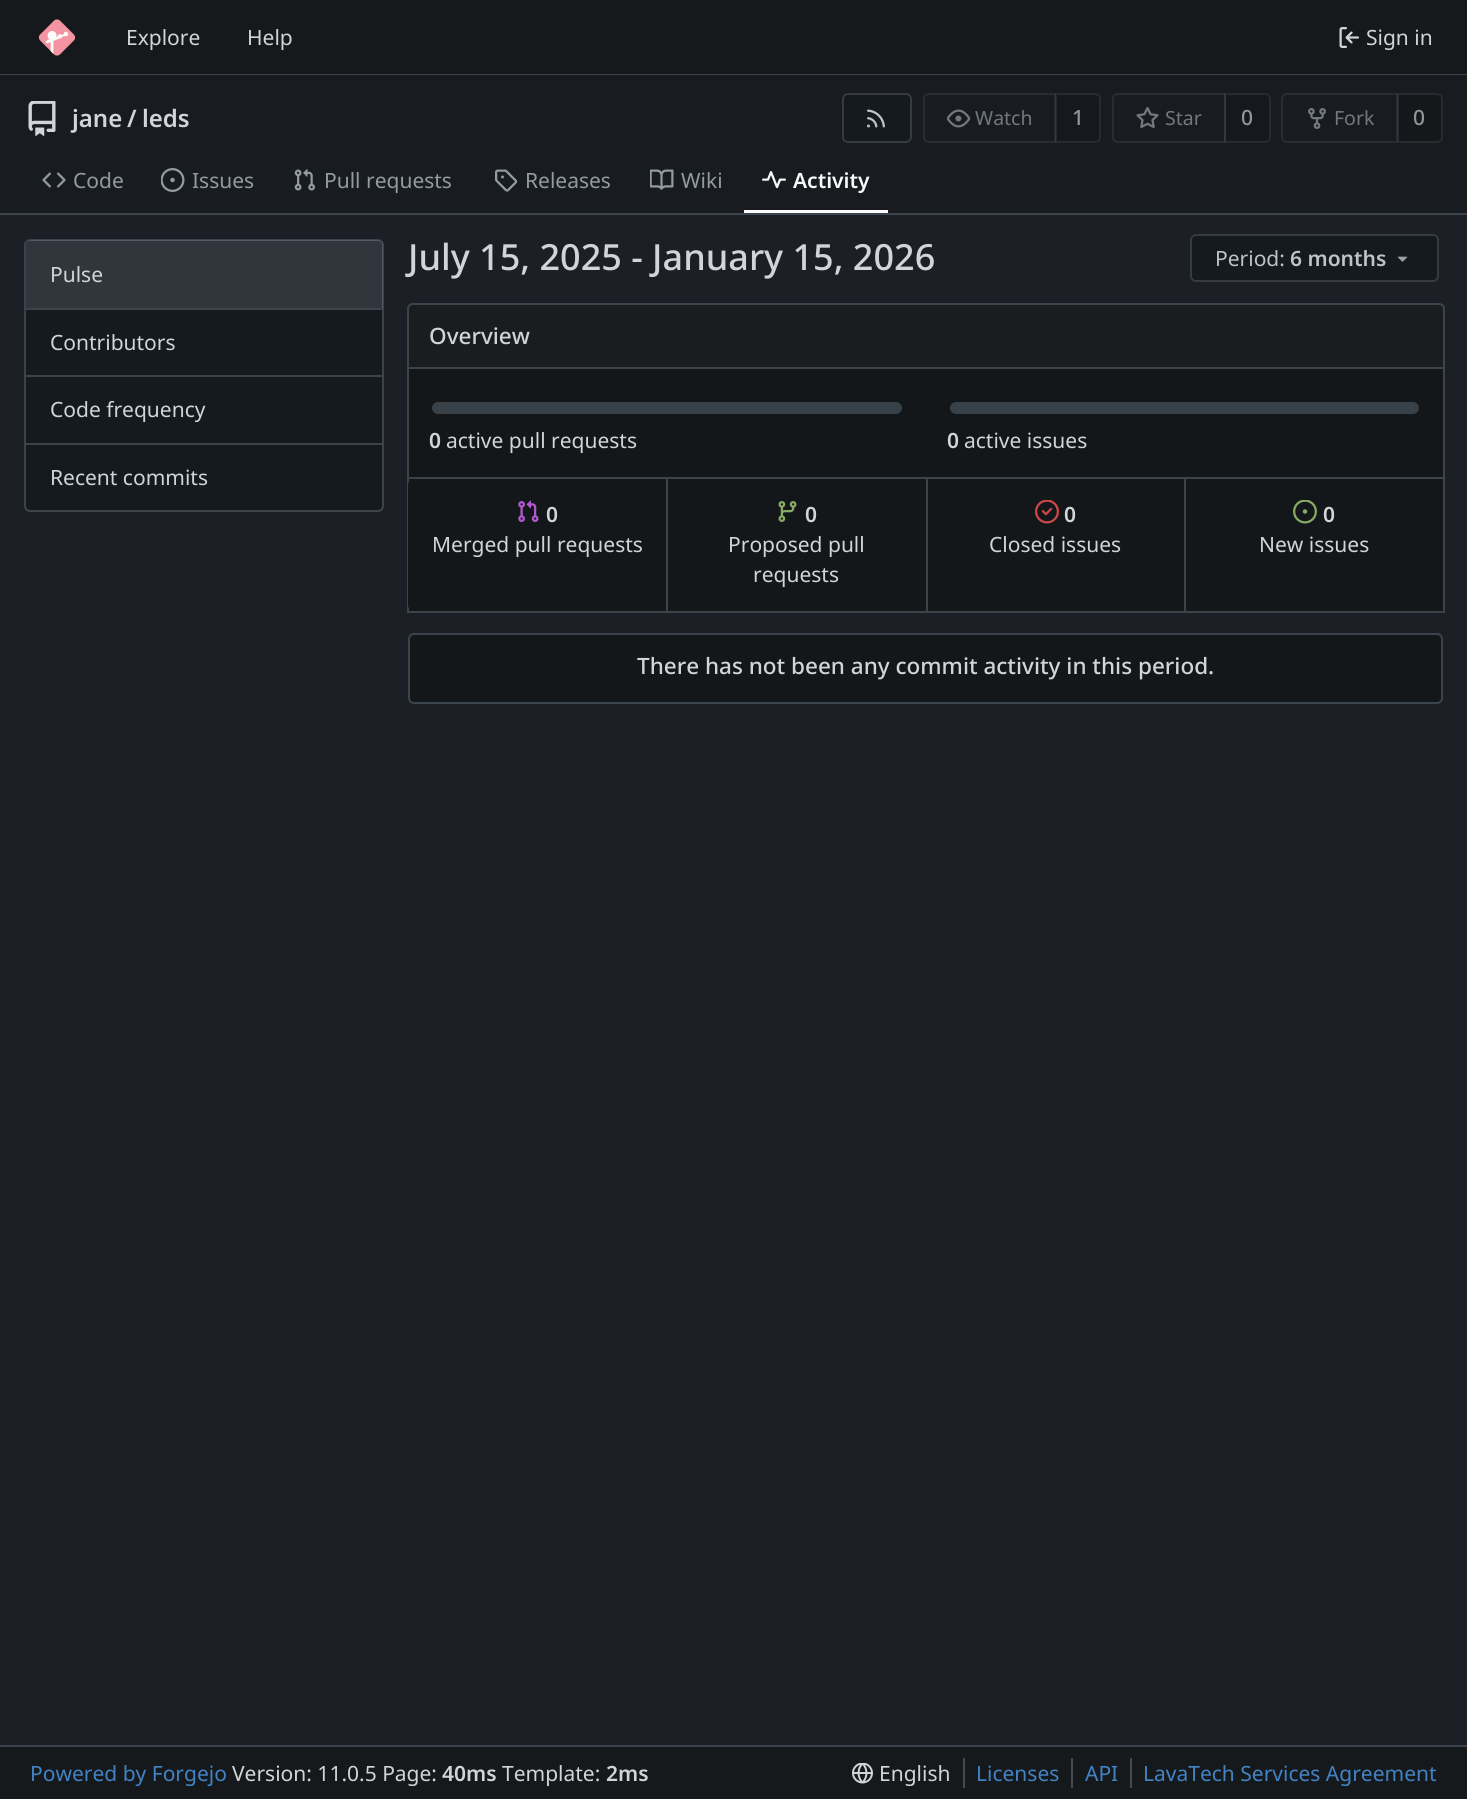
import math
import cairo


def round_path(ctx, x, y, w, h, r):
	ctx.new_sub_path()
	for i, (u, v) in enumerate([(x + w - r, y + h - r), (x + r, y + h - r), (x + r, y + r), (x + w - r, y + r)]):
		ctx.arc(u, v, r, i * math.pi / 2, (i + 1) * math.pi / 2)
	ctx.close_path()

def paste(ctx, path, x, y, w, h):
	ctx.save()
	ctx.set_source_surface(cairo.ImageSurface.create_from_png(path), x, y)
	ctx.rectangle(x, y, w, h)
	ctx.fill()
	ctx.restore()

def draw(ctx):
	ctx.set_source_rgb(0.11, 0.122, 0.145)
	ctx.paint()
	ctx.set_source_rgb(0.086, 0.098, 0.11)
	ctx.rectangle(0, 0, 1467, 74)
	ctx.fill()
	ctx.set_source_rgb(0.231, 0.267, 0.29)
	ctx.rectangle(0, 74, 1467, 1)
	ctx.fill()
	paste(ctx, 'media/1.png', 38, 19, 38, 37)
	ctx.select_font_face('Noto Sans')
	ctx.set_font_size(21)
	ctx.set_source_rgb(0.82, 0.835, 0.847)
	ctx.move_to(126, 45)
	ctx.show_text('Explore')
	ctx.move_to(247, 45)
	ctx.show_text('Help')
	paste(ctx, 'media/2.png', 1339, 27, 20, 21)
	ctx.move_to(1366, 45)
	ctx.show_text('Sign in')
	ctx.set_source_rgb(0.094, 0.11, 0.125)
	ctx.rectangle(0, 75, 1467, 138)
	ctx.fill()
	paste(ctx, 'media/3.png', 28, 101, 28, 35)
	ctx.select_font_face('Noto Sans SemiBold')
	ctx.set_font_size(24)
	ctx.set_source_rgb(0.82, 0.835, 0.847)
	for x, y, s in [
		(72, 127, 'jane'),
		(127, 127, '/'),
		(142, 127, 'leds'),
	]:
		ctx.move_to(x, y)
		ctx.show_text(s)
	ctx.set_source_rgb(0.082, 0.102, 0.118)
	round_path(ctx, 843, 94, 68, 48, 5)
	ctx.fill_preserve()
	ctx.set_source_rgb(0.212, 0.227, 0.255)
	ctx.stroke()
	paste(ctx, 'media/4.png', 867, 109, 18, 19)
	ctx.new_path()
	ctx.move_to(929, 94)
	ctx.line_to(1055, 94)
	ctx.line_to(1055, 142)
	ctx.line_to(929, 142)
	ctx.curve_to(926, 142, 924, 140, 924, 137)
	ctx.line_to(924, 99)
	ctx.curve_to(924, 96, 926, 94, 929, 94)
	ctx.close_path()
	ctx.set_source_rgb(0.157, 0.176, 0.196)
	ctx.stroke()
	paste(ctx, 'media/5.png', 947, 109, 24, 19)
	ctx.select_font_face('Noto Sans')
	ctx.set_font_size(19.5)
	ctx.set_source_rgb(0.451, 0.471, 0.486)
	ctx.move_to(975, 125)
	ctx.show_text('Watch')
	ctx.set_source_rgba(0, 0, 0, 0.14)
	ctx.new_path()
	ctx.move_to(1055, 93)
	ctx.line_to(1095, 93)
	ctx.curve_to(1098.5, 93, 1101, 95.5, 1101, 99)
	ctx.line_to(1101, 137)
	ctx.curve_to(1101, 140.5, 1098.5, 143, 1095, 143)
	ctx.line_to(1055, 143)
	ctx.close_path()
	ctx.fill()
	ctx.new_path()
	ctx.move_to(1056, 94)
	ctx.line_to(1095, 94)
	ctx.curve_to(1098, 94, 1100, 96, 1100, 99)
	ctx.line_to(1100, 137)
	ctx.curve_to(1100, 140, 1098, 142, 1095, 142)
	ctx.line_to(1056, 142)
	ctx.close_path()
	ctx.set_source_rgba(0.91, 0.91, 1, 0.09)
	ctx.stroke()
	ctx.select_font_face('Noto Sans Medium')
	ctx.set_font_size(21)
	ctx.set_source_rgb(0.576, 0.584, 0.592)
	ctx.move_to(1072, 125)
	ctx.show_text('1')
	ctx.new_path()
	ctx.move_to(1118, 94)
	ctx.line_to(1225, 94)
	ctx.line_to(1225, 142)
	ctx.line_to(1118, 142)
	ctx.curve_to(1115, 142, 1113, 140, 1113, 137)
	ctx.line_to(1113, 99)
	ctx.curve_to(1113, 96, 1115, 94, 1118, 94)
	ctx.close_path()
	ctx.set_source_rgb(0.157, 0.176, 0.196)
	ctx.stroke()
	paste(ctx, 'media/6.png', 1136, 107, 23, 22)
	ctx.select_font_face('Noto Sans')
	ctx.set_font_size(19.5)
	ctx.set_source_rgb(0.451, 0.471, 0.486)
	ctx.move_to(1165, 125)
	ctx.show_text('Star')
	ctx.set_source_rgba(0, 0, 0, 0.14)
	ctx.new_path()
	ctx.move_to(1224, 93)
	ctx.line_to(1265, 93)
	ctx.curve_to(1268.5, 93, 1271, 95.5, 1271, 99)
	ctx.line_to(1271, 137)
	ctx.curve_to(1271, 140.5, 1268.5, 143, 1265, 143)
	ctx.line_to(1224, 143)
	ctx.close_path()
	ctx.fill()
	ctx.new_path()
	ctx.move_to(1225, 94)
	ctx.line_to(1265, 94)
	ctx.curve_to(1268, 94, 1270, 96, 1270, 99)
	ctx.line_to(1270, 137)
	ctx.curve_to(1270, 140, 1268, 142, 1265, 142)
	ctx.line_to(1225, 142)
	ctx.close_path()
	ctx.set_source_rgba(0.91, 0.91, 1, 0.09)
	ctx.stroke()
	ctx.select_font_face('Noto Sans Medium')
	ctx.set_font_size(21)
	ctx.set_source_rgb(0.576, 0.584, 0.592)
	ctx.move_to(1241, 125)
	ctx.show_text('0')
	ctx.new_path()
	ctx.move_to(1287, 94)
	ctx.line_to(1397, 94)
	ctx.line_to(1397, 142)
	ctx.line_to(1287, 142)
	ctx.curve_to(1284, 142, 1282, 140, 1282, 137)
	ctx.line_to(1282, 99)
	ctx.curve_to(1282, 96, 1284, 94, 1287, 94)
	ctx.close_path()
	ctx.set_source_rgb(0.157, 0.176, 0.196)
	ctx.stroke()
	paste(ctx, 'media/7.png', 1308, 108, 18, 21)
	ctx.select_font_face('Noto Sans')
	ctx.set_font_size(19.5)
	ctx.set_source_rgb(0.451, 0.471, 0.486)
	ctx.move_to(1334, 125)
	ctx.show_text('Fork')
	ctx.set_source_rgba(0.043, 0.051, 0.055, 0.25)
	ctx.new_path()
	ctx.move_to(1397, 93)
	ctx.line_to(1437, 93)
	ctx.curve_to(1440.5, 93, 1443, 95.5, 1443, 99)
	ctx.line_to(1443, 137)
	ctx.curve_to(1443, 140.5, 1440.5, 143, 1437, 143)
	ctx.line_to(1397, 143)
	ctx.close_path()
	ctx.fill()
	ctx.new_path()
	ctx.move_to(1398, 94)
	ctx.line_to(1437, 94)
	ctx.curve_to(1440, 94, 1442, 96, 1442, 99)
	ctx.line_to(1442, 137)
	ctx.curve_to(1442, 140, 1440, 142, 1437, 142)
	ctx.line_to(1398, 142)
	ctx.close_path()
	ctx.set_source_rgba(0.541, 0.549, 0.608, 0.16)
	ctx.stroke()
	ctx.select_font_face('Noto Sans Medium')
	ctx.set_font_size(21)
	ctx.set_source_rgb(0.576, 0.584, 0.592)
	ctx.move_to(1413, 125)
	ctx.show_text('0')
	paste(ctx, 'media/8.png', 42, 172, 24, 16)
	ctx.select_font_face('Noto Sans')
	ctx.set_source_rgb(0.573, 0.608, 0.635)
	ctx.move_to(73, 188)
	ctx.show_text('Code')
	paste(ctx, 'media/9.png', 161, 168, 24, 24)
	ctx.move_to(192, 188)
	ctx.show_text('Issues')
	paste(ctx, 'media/10.png', 294, 169, 21, 22)
	ctx.move_to(324, 188)
	ctx.show_text('Pull requests')
	paste(ctx, 'media/11.png', 495, 169, 23, 23)
	ctx.move_to(525, 188)
	ctx.show_text('Releases')
	paste(ctx, 'media/12.png', 650, 169, 24, 21)
	ctx.move_to(681, 188)
	ctx.show_text('Wiki')
	ctx.set_source_rgb(0.973, 0.973, 0.976)
	ctx.rectangle(744, 210, 144, 3)
	ctx.fill()
	paste(ctx, 'media/13.png', 762, 171, 24, 18)
	ctx.select_font_face('Noto Sans SemiBold')
	ctx.move_to(793, 188)
	ctx.show_text('Activity')
	ctx.set_source_rgb(0.231, 0.267, 0.29)
	ctx.rectangle(0, 213, 1467, 2)
	ctx.fill()
	ctx.set_source_rgb(0.082, 0.102, 0.118)
	round_path(ctx, 25, 240, 358, 271, 5)
	ctx.fill_preserve()
	ctx.set_source_rgb(0.231, 0.267, 0.29)
	ctx.stroke()
	ctx.set_source_rgba(0.91, 0.91, 1, 0.14)
	ctx.new_path()
	ctx.move_to(32, 240)
	ctx.line_to(377, 240)
	ctx.curve_to(380.5, 240, 383, 242.5, 383, 246)
	ctx.line_to(383, 308)
	ctx.line_to(26, 308)
	ctx.line_to(26, 246)
	ctx.curve_to(26, 242.5, 28.5, 240, 32, 240)
	ctx.close_path()
	ctx.fill()
	ctx.select_font_face('Noto Sans')
	ctx.set_source_rgb(0.82, 0.835, 0.847)
	ctx.move_to(50, 282)
	ctx.show_text('Pulse')
	ctx.set_source_rgb(0.231, 0.267, 0.29)
	ctx.rectangle(26, 308, 357, 2)
	ctx.fill()
	ctx.set_source_rgb(0.82, 0.835, 0.847)
	ctx.move_to(50, 350)
	ctx.show_text('Contributors')
	ctx.set_source_rgb(0.231, 0.267, 0.29)
	ctx.rectangle(26, 375, 357, 2)
	ctx.fill()
	ctx.set_source_rgb(0.82, 0.835, 0.847)
	ctx.move_to(50, 417)
	ctx.show_text('Code frequency')
	ctx.set_source_rgb(0.231, 0.267, 0.29)
	ctx.rectangle(26, 443, 357, 2)
	ctx.fill()
	ctx.set_source_rgb(0.82, 0.835, 0.847)
	ctx.move_to(50, 485)
	ctx.show_text('Recent commits')
	ctx.select_font_face('Noto Sans Medium')
	ctx.set_font_size(36)
	ctx.move_to(408, 270)
	ctx.show_text('July 15, 2025 - January 15, 2026')
	ctx.set_source_rgb(0.082, 0.102, 0.118)
	round_path(ctx, 1191, 235, 247, 46, 5)
	ctx.fill_preserve()
	ctx.set_source_rgb(0.212, 0.227, 0.255)
	ctx.stroke()
	ctx.select_font_face('Noto Sans')
	ctx.set_font_size(21)
	ctx.set_source_rgb(0.741, 0.765, 0.78)
	ctx.move_to(1215, 266)
	ctx.show_text('Period:')
	ctx.select_font_face('Noto Sans SemiBold')
	ctx.move_to(1290, 266)
	ctx.show_text('6 months')
	paste(ctx, 'media/14.png', 1397, 256, 11, 6)
	ctx.set_source_rgb(0.102, 0.114, 0.122)
	ctx.new_path()
	ctx.move_to(413, 304)
	ctx.line_to(1439, 304)
	ctx.curve_to(1442, 304, 1444, 306, 1444, 309)
	ctx.line_to(1444, 368)
	ctx.line_to(408, 368)
	ctx.line_to(408, 309)
	ctx.curve_to(408, 306, 410, 304, 413, 304)
	ctx.close_path()
	ctx.fill_preserve()
	ctx.set_source_rgb(0.231, 0.267, 0.29)
	ctx.stroke()
	ctx.select_font_face('Noto Sans Medium')
	ctx.set_font_size(22.5)
	ctx.set_source_rgb(0.82, 0.835, 0.847)
	ctx.move_to(429, 344)
	ctx.show_text('Overview')
	ctx.set_source_rgb(0.078, 0.09, 0.102)
	ctx.rectangle(409, 369, 1034, 108)
	ctx.fill()
	ctx.set_source_rgb(0.231, 0.267, 0.29)
	ctx.rectangle(1443, 369, 2, 243)
	ctx.rectangle(407, 477, 1038, 2)
	ctx.rectangle(407, 369, 2, 110)
	ctx.fill()
	ctx.set_source_rgb(0.22, 0.255, 0.278)
	round_path(ctx, 432, 402, 470, 12, 6)
	ctx.fill()
	ctx.select_font_face('Noto Sans SemiBold')
	ctx.set_font_size(21)
	ctx.set_source_rgb(0.82, 0.835, 0.847)
	ctx.move_to(429, 448)
	ctx.show_text('0')
	ctx.select_font_face('Noto Sans')
	ctx.move_to(446, 448)
	ctx.show_text('active pull requests')
	ctx.set_source_rgb(0.22, 0.255, 0.278)
	round_path(ctx, 950, 402, 469, 12, 6)
	ctx.fill()
	ctx.select_font_face('Noto Sans SemiBold')
	ctx.set_source_rgb(0.82, 0.835, 0.847)
	ctx.move_to(947, 448)
	ctx.show_text('0')
	ctx.select_font_face('Noto Sans')
	ctx.move_to(964, 448)
	ctx.show_text('active issues')
	ctx.set_source_rgb(0.078, 0.09, 0.102)
	ctx.rectangle(409, 479, 1034, 132)
	ctx.fill()
	ctx.set_source_rgb(0.231, 0.267, 0.29)
	ctx.rectangle(407, 611, 1038, 2)
	ctx.rectangle(407, 479, 2, 133)
	ctx.fill()
	ctx.set_source_rgb(0.078, 0.09, 0.102)
	ctx.new_path()
	ctx.move_to(414, 479)
	ctx.line_to(666, 479)
	ctx.line_to(666, 611)
	ctx.line_to(414, 611)
	ctx.curve_to(410.5, 611, 408, 608.5, 408, 605)
	ctx.line_to(408, 485)
	ctx.curve_to(408, 481.5, 410.5, 479, 414, 479)
	ctx.close_path()
	ctx.fill()
	paste(ctx, 'media/15.png', 518, 500, 21, 22)
	ctx.select_font_face('Noto Sans SemiBold')
	ctx.set_source_rgb(0.82, 0.835, 0.847)
	ctx.move_to(546, 522)
	ctx.show_text('0')
	ctx.select_font_face('Noto Sans')
	ctx.move_to(432, 552)
	ctx.show_text('Merged pull requests')
	ctx.set_source_rgb(0.231, 0.267, 0.29)
	ctx.rectangle(666, 479, 2, 132)
	ctx.fill()
	paste(ctx, 'media/16.png', 778, 501, 19, 21)
	ctx.select_font_face('Noto Sans SemiBold')
	ctx.set_source_rgb(0.82, 0.835, 0.847)
	ctx.move_to(805, 522)
	ctx.show_text('0')
	ctx.select_font_face('Noto Sans')
	ctx.move_to(728, 552)
	ctx.show_text('Proposed pull')
	ctx.move_to(753, 582)
	ctx.show_text('requests')
	ctx.set_source_rgb(0.231, 0.267, 0.29)
	ctx.rectangle(926, 479, 2, 132)
	ctx.fill()
	paste(ctx, 'media/17.png', 1035, 500, 24, 24)
	ctx.select_font_face('Noto Sans SemiBold')
	ctx.set_source_rgb(0.82, 0.835, 0.847)
	ctx.move_to(1064, 522)
	ctx.show_text('0')
	ctx.select_font_face('Noto Sans')
	ctx.move_to(989, 552)
	ctx.show_text('Closed issues')
	ctx.set_source_rgb(0.231, 0.267, 0.29)
	ctx.rectangle(1184, 479, 2, 132)
	ctx.fill()
	paste(ctx, 'media/18.png', 1293, 500, 24, 24)
	ctx.select_font_face('Noto Sans SemiBold')
	ctx.set_source_rgb(0.82, 0.835, 0.847)
	ctx.move_to(1323, 522)
	ctx.show_text('0')
	ctx.select_font_face('Noto Sans')
	ctx.move_to(1259, 552)
	ctx.show_text('New issues')
	ctx.set_source_rgb(0.078, 0.09, 0.102)
	round_path(ctx, 409, 634, 1033, 69, 5)
	ctx.fill_preserve()
	ctx.set_source_rgb(0.231, 0.267, 0.29)
	ctx.stroke()
	ctx.select_font_face('Noto Sans Medium')
	ctx.set_font_size(22.5)
	ctx.set_source_rgb(0.82, 0.835, 0.847)
	ctx.move_to(637, 674)
	ctx.show_text('There has not been any commit activity in this period.')
	ctx.set_source_rgb(0.086, 0.098, 0.11)
	ctx.rectangle(0, 1747, 1467, 52)
	ctx.fill()
	ctx.set_source_rgb(0.231, 0.267, 0.29)
	ctx.rectangle(0, 1745, 1467, 2)
	ctx.fill()
	ctx.select_font_face('Noto Sans')
	ctx.set_font_size(21)
	ctx.set_source_rgb(0.255, 0.514, 0.769)
	ctx.move_to(30, 1781)
	ctx.show_text('Powered by Forgejo')
	ctx.set_source_rgb(0.82, 0.835, 0.847)
	ctx.move_to(232, 1781)
	ctx.show_text('Version: 11.0.5 Page:')
	ctx.select_font_face('Noto Sans SemiBold')
	ctx.move_to(442, 1781)
	ctx.show_text('40ms')
	ctx.select_font_face('Noto Sans')
	ctx.move_to(502, 1781)
	ctx.show_text('Template:')
	ctx.select_font_face('Noto Sans SemiBold')
	ctx.move_to(606, 1781)
	ctx.show_text('2ms')
	paste(ctx, 'media/19.png', 852, 1763, 21, 21)
	ctx.select_font_face('Noto Sans')
	ctx.move_to(879, 1781)
	ctx.show_text('English')
	ctx.set_source_rgb(0.259, 0.294, 0.318)
	ctx.rectangle(963, 1758, 2, 30)
	ctx.fill()
	ctx.set_source_rgb(0.255, 0.514, 0.769)
	ctx.move_to(976, 1781)
	ctx.show_text('Licenses')
	ctx.set_source_rgb(0.259, 0.294, 0.318)
	ctx.rectangle(1071, 1758, 2, 30)
	ctx.fill()
	ctx.set_source_rgb(0.255, 0.514, 0.769)
	ctx.move_to(1085, 1781)
	ctx.show_text('API')
	ctx.set_source_rgb(0.259, 0.294, 0.318)
	ctx.rectangle(1130, 1758, 2, 30)
	ctx.fill()
	ctx.set_source_rgb(0.255, 0.514, 0.769)
	ctx.move_to(1143, 1781)
	ctx.show_text('LavaTech Services Agreement')


surface = cairo.ImageSurface(cairo.FORMAT_RGB24, 1467, 1799)
ctx = cairo.Context(surface)
options = cairo.FontOptions()
options.set_hint_metrics(cairo.HINT_METRICS_OFF)
options.set_hint_style(cairo.HINT_STYLE_NONE)
ctx.set_font_options(options)
ctx.set_miter_limit(4)
draw(ctx)
surface.write_to_png('image.png')
